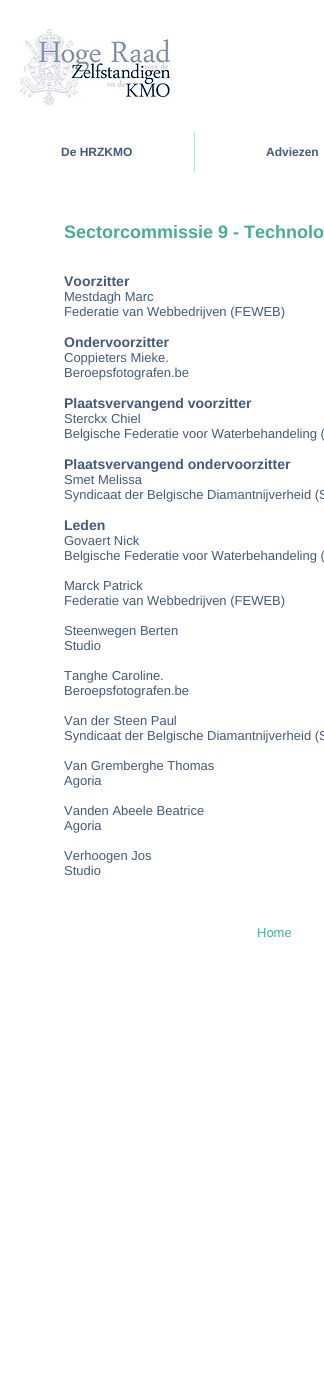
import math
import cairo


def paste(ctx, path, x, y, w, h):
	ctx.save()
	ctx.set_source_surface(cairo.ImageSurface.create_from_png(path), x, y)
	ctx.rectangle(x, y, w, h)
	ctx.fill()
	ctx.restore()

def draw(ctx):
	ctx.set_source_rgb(1, 1, 1)
	ctx.paint()
	paste(ctx, 'media/1.png', 18, 28, 152, 78)
	ctx.select_font_face('Liberation Sans', cairo.FONT_SLANT_NORMAL, cairo.FONT_WEIGHT_BOLD)
	ctx.set_font_size(12)
	ctx.set_source_rgb(0.259, 0.349, 0.498)
	ctx.move_to(61, 156)
	ctx.show_text('De HRZKMO')
	ctx.set_source_rgb(0.749, 0.886, 0.855)
	ctx.rectangle(194, 132, 1, 40)
	ctx.fill()
	ctx.set_source_rgb(0.259, 0.349, 0.498)
	ctx.move_to(266, 156)
	ctx.show_text('Adviezen')
	ctx.set_font_size(18)
	ctx.set_source_rgb(0.278, 0.678, 0.58)
	ctx.move_to(64, 238)
	ctx.show_text('Sectorcommissie 9 - Technolo')
	ctx.set_font_size(14)
	ctx.set_source_rgb(0.259, 0.349, 0.498)
	ctx.move_to(64, 286)
	ctx.show_text('Voorzitter')
	ctx.select_font_face('Liberation Sans')
	ctx.set_font_size(13)
	ctx.move_to(64, 301)
	ctx.show_text('Mestdagh Marc')
	ctx.move_to(64, 316)
	ctx.show_text('Federatie van Webbedrijven (FEWEB)')
	ctx.select_font_face('Liberation Sans', cairo.FONT_SLANT_NORMAL, cairo.FONT_WEIGHT_BOLD)
	ctx.set_font_size(14)
	ctx.move_to(64, 347)
	ctx.show_text('Ondervoorzitter')
	ctx.select_font_face('Liberation Sans')
	ctx.set_font_size(13)
	ctx.move_to(64, 362)
	ctx.show_text('Coppieters Mieke.')
	ctx.move_to(64, 377)
	ctx.show_text('Beroepsfotografen.be')
	ctx.select_font_face('Liberation Sans', cairo.FONT_SLANT_NORMAL, cairo.FONT_WEIGHT_BOLD)
	ctx.set_font_size(14)
	ctx.move_to(64, 408)
	ctx.show_text('Plaatsvervangend voorzitter')
	ctx.select_font_face('Liberation Sans')
	ctx.set_font_size(13)
	ctx.move_to(64, 423)
	ctx.show_text('Sterckx Chiel')
	ctx.move_to(64, 438)
	ctx.show_text('Belgische Federatie voor Waterbehandeling (')
	ctx.select_font_face('Liberation Sans', cairo.FONT_SLANT_NORMAL, cairo.FONT_WEIGHT_BOLD)
	ctx.set_font_size(14)
	ctx.move_to(64, 469)
	ctx.show_text('Plaatsvervangend ondervoorzitter')
	ctx.select_font_face('Liberation Sans')
	ctx.set_font_size(13)
	ctx.move_to(64, 484)
	ctx.show_text('Smet Melissa')
	ctx.move_to(64, 499)
	ctx.show_text('Syndicaat der Belgische Diamantnijverheid (S')
	ctx.select_font_face('Liberation Sans', cairo.FONT_SLANT_NORMAL, cairo.FONT_WEIGHT_BOLD)
	ctx.set_font_size(14)
	ctx.move_to(64, 530)
	ctx.show_text('Leden')
	ctx.select_font_face('Liberation Sans')
	ctx.set_font_size(13)
	for x, y, s in [
		(64, 545, 'Govaert Nick'),
		(64, 560, 'Belgische Federatie voor Waterbehandeling ('),
		(64, 590, 'Marck Patrick'),
		(64, 605, 'Federatie van Webbedrijven (FEWEB)'),
		(64, 635, 'Steenwegen Berten'),
		(64, 650, 'Studio'),
		(64, 680, 'Tanghe Caroline.'),
		(64, 695, 'Beroepsfotografen.be'),
		(64, 725, 'Van der Steen Paul'),
		(64, 740, 'Syndicaat der Belgische Diamantnijverheid (S'),
		(64, 770, 'Van Gremberghe Thomas'),
		(64, 785, 'Agoria'),
		(64, 815, 'Vanden Abeele Beatrice'),
		(64, 830, 'Agoria'),
		(64, 860, 'Verhoogen Jos'),
		(64, 875, 'Studio'),
	]:
		ctx.move_to(x, y)
		ctx.show_text(s)
	ctx.set_source_rgb(0.278, 0.678, 0.58)
	ctx.move_to(257, 937)
	ctx.show_text('Home')


surface = cairo.ImageSurface(cairo.FORMAT_RGB24, 324, 1374)
ctx = cairo.Context(surface)
options = cairo.FontOptions()
options.set_hint_metrics(cairo.HINT_METRICS_OFF)
options.set_hint_style(cairo.HINT_STYLE_NONE)
ctx.set_font_options(options)
ctx.set_miter_limit(4)
draw(ctx)
surface.write_to_png('image.png')
